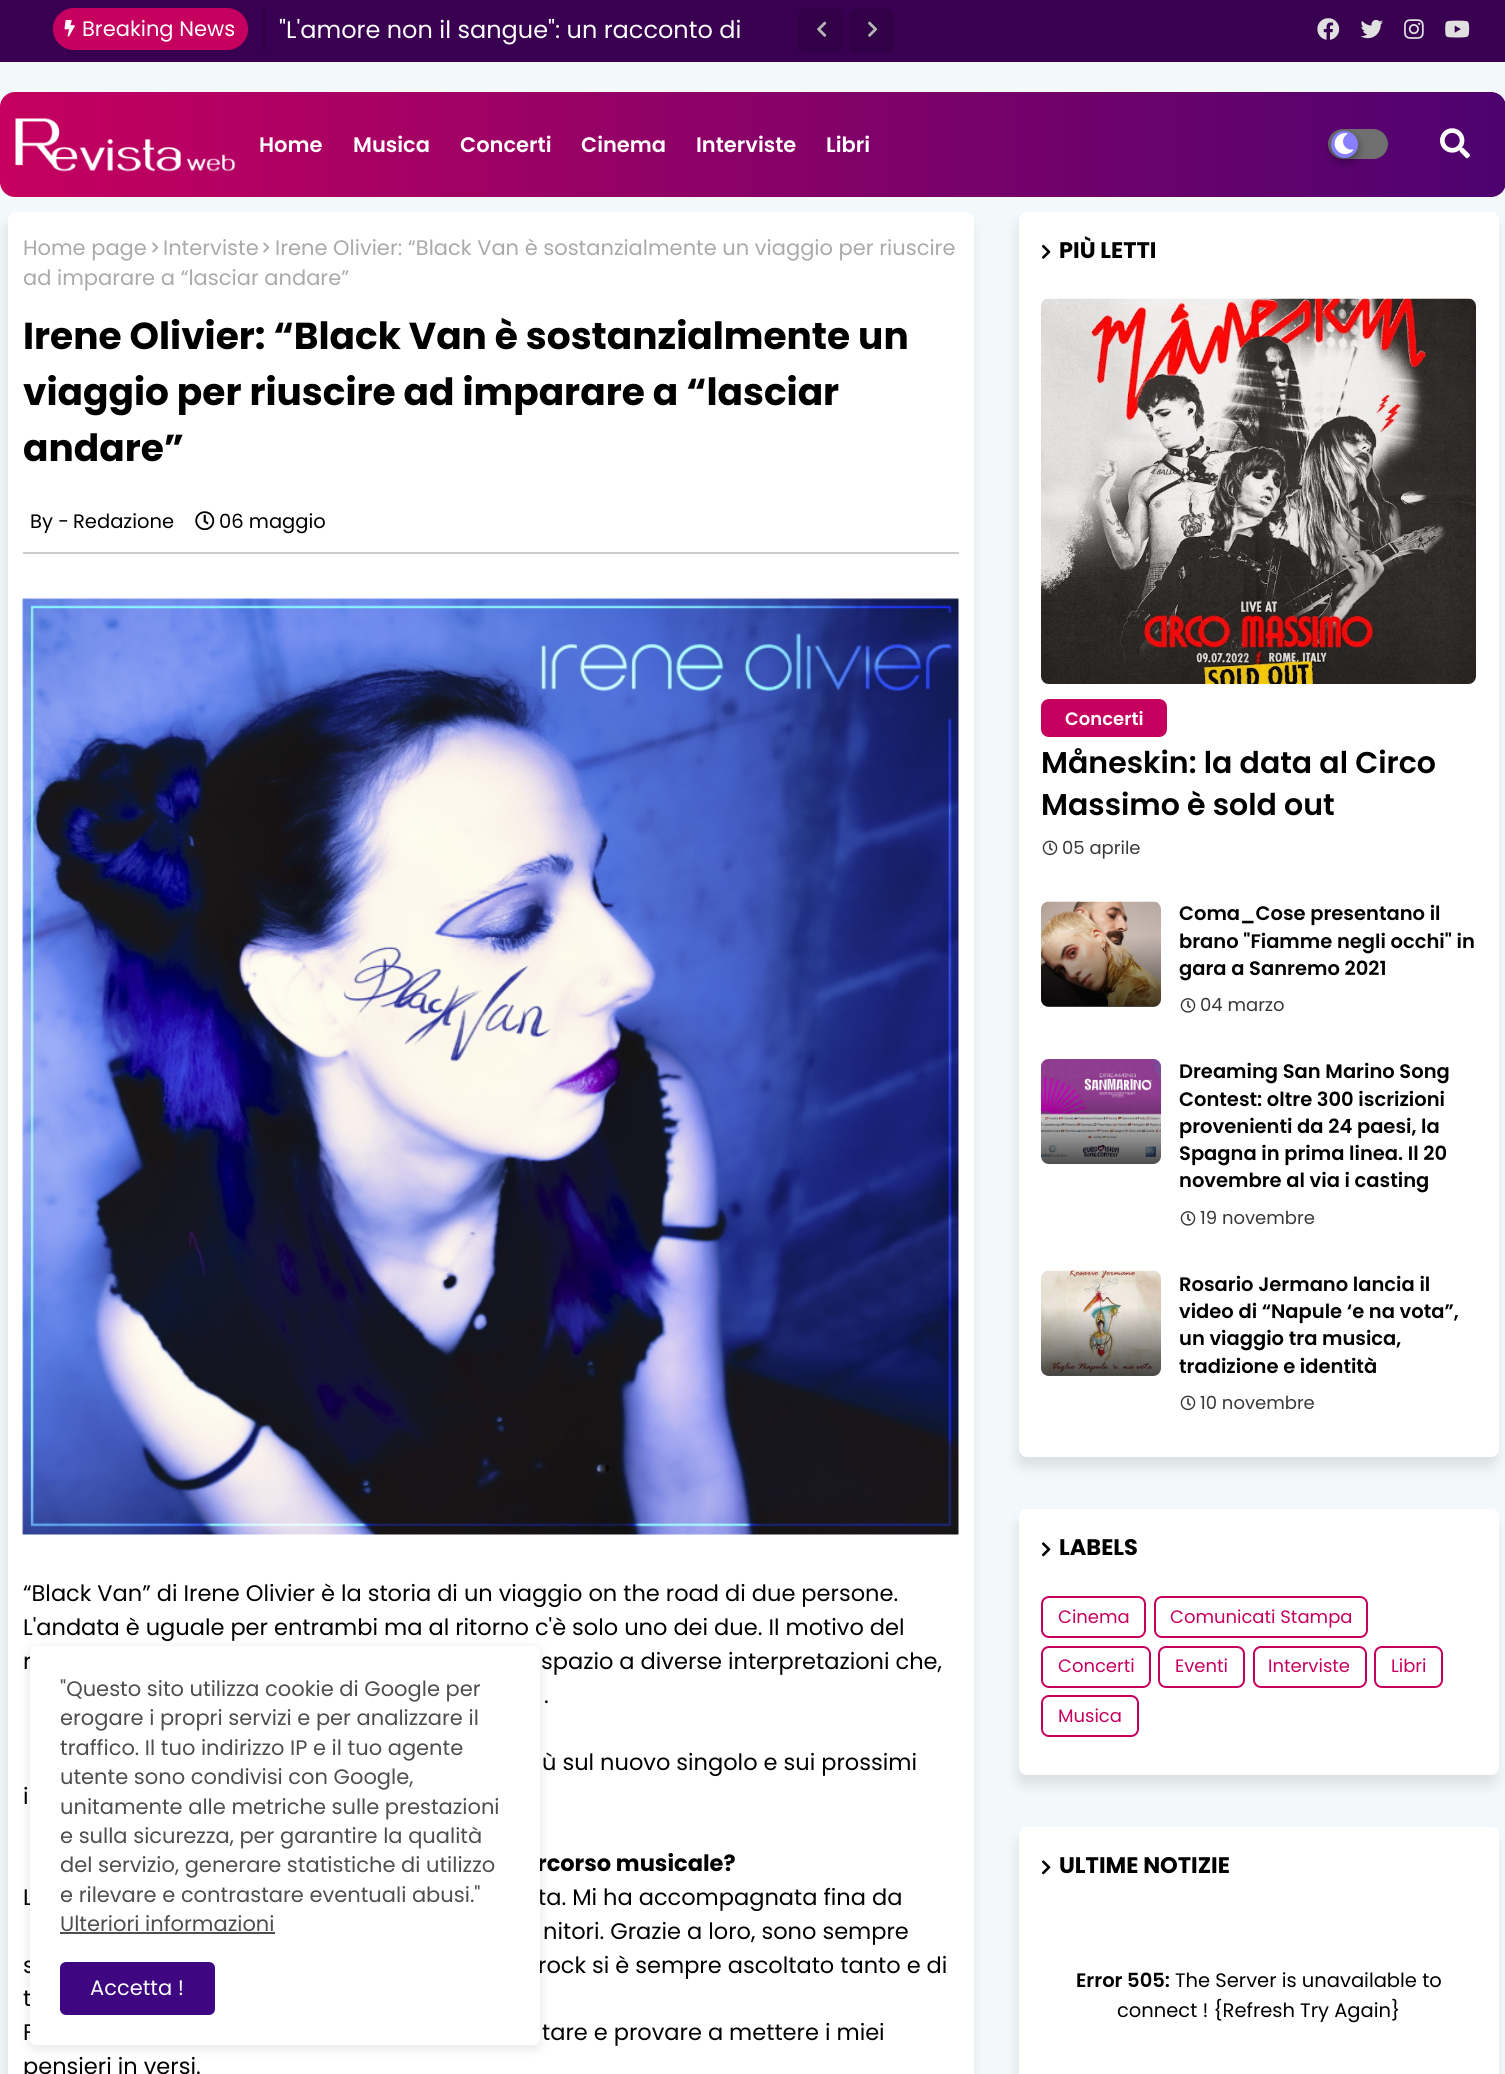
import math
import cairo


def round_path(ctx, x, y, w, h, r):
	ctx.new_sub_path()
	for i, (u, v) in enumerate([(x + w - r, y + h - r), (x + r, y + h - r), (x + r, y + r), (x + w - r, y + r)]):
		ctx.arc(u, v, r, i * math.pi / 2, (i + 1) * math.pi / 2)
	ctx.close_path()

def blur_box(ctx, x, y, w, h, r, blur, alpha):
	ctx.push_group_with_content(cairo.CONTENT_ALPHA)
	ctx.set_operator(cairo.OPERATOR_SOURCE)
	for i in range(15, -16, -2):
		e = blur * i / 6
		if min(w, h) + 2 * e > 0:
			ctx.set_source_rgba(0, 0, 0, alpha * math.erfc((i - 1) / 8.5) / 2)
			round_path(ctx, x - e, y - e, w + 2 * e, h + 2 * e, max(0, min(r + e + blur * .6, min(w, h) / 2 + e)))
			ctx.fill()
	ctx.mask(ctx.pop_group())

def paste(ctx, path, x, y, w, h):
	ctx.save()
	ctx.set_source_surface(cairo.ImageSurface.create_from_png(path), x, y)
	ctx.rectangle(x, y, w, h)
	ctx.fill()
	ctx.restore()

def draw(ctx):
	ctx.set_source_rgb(0.953, 0.973, 0.984)
	ctx.paint()
	ctx.set_source_rgb(0.224, 0, 0.322)
	ctx.rectangle(0, 0, 1505, 62)
	ctx.fill()
	ctx.set_source_rgb(0.184, 0, 0.263)
	ctx.rectangle(263, 8, 2, 42)
	ctx.fill()
	ctx.set_source_rgb(0.776, 0, 0.373)
	round_path(ctx, 53, 8, 195, 42, 21)
	ctx.fill()
	paste(ctx, 'media/1.png', 64, 20, 11, 17)
	ctx.select_font_face('Poppins')
	ctx.set_font_size(21)
	ctx.set_source_rgb(1, 1, 1)
	ctx.move_to(82, 36)
	ctx.show_text('Breaking News')
	ctx.set_font_size(24)
	ctx.move_to(279, 38)
	ctx.show_text('"L\'amore non il sangue": un racconto di')
	ctx.set_source_rgb(0.196, 0, 0.278)
	round_path(ctx, 798, 8, 45, 45, 8)
	ctx.fill()
	paste(ctx, 'media/2.png', 817, 21, 10, 16)
	round_path(ctx, 849, 8, 45, 45, 8)
	ctx.fill()
	paste(ctx, 'media/3.png', 868, 21, 10, 16)
	paste(ctx, 'media/4.png', 1317, 18, 23, 22)
	paste(ctx, 'media/5.png', 1360, 19, 23, 20)
	paste(ctx, 'media/6.png', 1404, 19, 20, 20)
	paste(ctx, 'media/7.png', 1445, 20, 25, 18)
	gradient = cairo.LinearGradient(0, 144, 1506, 144)
	gradient.add_color_stop_rgba(0, 0.776, 0, 0.373, 1)
	gradient.add_color_stop_rgba(1, 0.302, 0.008, 0.439, 1)
	ctx.set_source(gradient)
	round_path(ctx, 0, 92, 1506, 105, 15)
	ctx.fill()
	paste(ctx, 'media/8.png', 15, 118, 220, 54)
	ctx.select_font_face('Poppins SemiBold')
	ctx.set_font_size(21)
	ctx.set_source_rgb(1, 1, 1)
	for x, y, s in [
		(259, 152, 'Home'),
		(353, 152, 'Musica'),
		(460, 152, 'Concerti'),
		(581, 152, 'Cinema'),
		(696, 152, 'Interviste'),
		(826, 152, 'Libri'),
	]:
		ctx.move_to(x, y)
		ctx.show_text(s)
	ctx.set_source_rgb(0.435, 0.435, 0.435)
	round_path(ctx, 1328, 129, 60, 30, 15)
	ctx.fill()
	ctx.set_source_rgb(0, 0, 0)
	blur_box(ctx, 1331, 135, 27, 27, 13.5, 4.5, 0.23)
	blur_box(ctx, 1331, 135, 27, 27, 13.5, 4.5, 0.16)
	ctx.set_source_rgb(0.533, 0.498, 1)
	ctx.arc(1344.5, 144.5, 13.5, 0, 2 * math.pi)
	ctx.fill()
	paste(ctx, 'media/9.png', 1334, 133, 20, 22)
	paste(ctx, 'media/10.png', 1440, 128, 30, 31)
	ctx.set_source_rgb(0, 0, 0)
	blur_box(ctx, 6, 222, 966, 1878, 8, 6, 0.1)
	ctx.set_source_rgb(1, 1, 1)
	round_path(ctx, 8, 212, 966, 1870, 8)
	ctx.fill()
	ctx.select_font_face('Poppins')
	ctx.set_source_rgb(0.667, 0.667, 0.667)
	ctx.move_to(23, 255)
	ctx.show_text('Home page')
	paste(ctx, 'media/11.png', 152, 242, 7, 11)
	ctx.move_to(163, 255)
	ctx.show_text('Interviste')
	paste(ctx, 'media/11.png', 263, 242, 7, 11)
	ctx.move_to(275, 255)
	ctx.show_text('Irene Olivier: “Black Van è sostanzialmente un viaggio per riuscire')
	ctx.move_to(23, 285)
	ctx.show_text('ad imparare a “lasciar andare”')
	ctx.select_font_face('Poppins', cairo.FONT_SLANT_NORMAL, cairo.FONT_WEIGHT_BOLD)
	ctx.set_font_size(37.5)
	ctx.set_source_rgb(0, 0, 0)
	for x, y, s in [
		(23, 349, 'Irene Olivier: “Black Van è sostanzialmente un'),
		(23, 405, 'viaggio per riuscire ad imparare a “lasciar'),
		(23, 461, 'andare”'),
	]:
		ctx.move_to(x, y)
		ctx.show_text(s)
	ctx.set_source_rgb(0.8, 0.8, 0.8)
	ctx.rectangle(23, 552, 936, 2)
	ctx.fill()
	ctx.select_font_face('Poppins')
	ctx.set_font_size(19.5)
	ctx.set_source_rgb(0, 0, 0)
	ctx.move_to(30, 528)
	ctx.show_text('By -')
	ctx.move_to(73, 528)
	ctx.show_text('Redazione')
	paste(ctx, 'media/12.png', 195, 511, 20, 20)
	ctx.move_to(219, 528)
	ctx.show_text('06 maggio')
	paste(ctx, 'media/13.png', 22, 598, 937, 937)
	ctx.set_font_size(22.5)
	for x, y, s in [
		(23, 1601, '“Black Van” di Irene Olivier è la storia di un viaggio on the road di due persone.'),
		(23, 1635, 'L\'andata è uguale per entrambi ma al ritorno c\'è solo uno dei due. Il motivo del'),
		(23, 1669, 'r'),
		(541, 1669, 'spazio a diverse interpretazioni che,'),
		(544, 1703, '.'),
		(542, 1770, 'ù sul nuovo singolo e sui prossimi'),
		(23, 1804, 'i'),
	]:
		ctx.move_to(x, y)
		ctx.show_text(s)
	ctx.select_font_face('Poppins', cairo.FONT_SLANT_NORMAL, cairo.FONT_WEIGHT_BOLD)
	ctx.move_to(537, 1871)
	ctx.show_text('rcorso musicale?')
	ctx.select_font_face('Poppins')
	for x, y, s in [
		(23, 1905, 'L'),
		(538, 1905, 'ta. Mi ha accompagnata fina da'),
		(543, 1939, 'nitori. Grazie a loro, sono sempre'),
		(23, 1973, 's'),
		(538, 1973, 'rock si è sempre ascoltato tanto e di'),
		(23, 2006, 't'),
		(23, 2040, 'F'),
		(542, 2040, 'tare e provare a mettere i miei'),
		(23, 2074, 'pensieri in versi.'),
	]:
		ctx.move_to(x, y)
		ctx.show_text(s)
	ctx.set_source_rgb(0, 0, 0)
	blur_box(ctx, 1017, 222, 480, 1245, 8, 6, 0.1)
	ctx.set_source_rgb(1, 1, 1)
	round_path(ctx, 1019, 212, 480, 1245, 8)
	ctx.fill()
	paste(ctx, 'media/14.png', 1041, 244, 10, 15)
	ctx.select_font_face('Poppins', cairo.FONT_SLANT_NORMAL, cairo.FONT_WEIGHT_BOLD)
	ctx.set_source_rgb(0, 0, 0)
	ctx.move_to(1059, 258)
	ctx.show_text('PIÙ LETTI')
	paste(ctx, 'media/15.png', 1041, 298, 435, 386)
	ctx.set_source_rgb(0.776, 0, 0.373)
	round_path(ctx, 1041, 699, 126, 38, 8)
	ctx.fill()
	ctx.select_font_face('Poppins SemiBold')
	ctx.set_font_size(18)
	ctx.set_source_rgb(1, 1, 1)
	ctx.move_to(1065, 725)
	ctx.show_text('Concerti')
	ctx.set_font_size(30)
	ctx.set_source_rgb(0, 0, 0)
	ctx.move_to(1041, 773)
	ctx.show_text('Måneskin: la data al Circo')
	ctx.move_to(1041, 815)
	ctx.show_text('Massimo è sold out')
	paste(ctx, 'media/16.png', 1042, 840, 16, 16)
	ctx.select_font_face('Poppins')
	ctx.set_font_size(18)
	ctx.set_source_rgb(0.22, 0.22, 0.22)
	ctx.move_to(1062, 854)
	ctx.show_text('05 aprile')
	ctx.set_source_rgb(0.973, 0.973, 0.973)
	round_path(ctx, 1041, 902, 120, 105, 8)
	ctx.fill()
	paste(ctx, 'media/17.png', 1041, 901, 120, 106)
	gradient = cairo.LinearGradient(1101, 936, 1101, 1007)
	gradient.add_color_stop_rgba(0, 0, 0, 0, 0)
	gradient.add_color_stop_rgba(1, 0, 0, 0, 0.7)
	ctx.set_source(gradient)
	ctx.new_path()
	ctx.move_to(1041, 936)
	ctx.line_to(1161, 936)
	ctx.line_to(1161, 999)
	ctx.curve_to(1161, 1003.5, 1157.5, 1007, 1153, 1007)
	ctx.line_to(1049, 1007)
	ctx.curve_to(1044.5, 1007, 1041, 1003.5, 1041, 999)
	ctx.close_path()
	ctx.fill()
	ctx.select_font_face('Poppins SemiBold')
	ctx.set_font_size(19.5)
	ctx.set_source_rgb(0, 0, 0)
	for x, y, s in [
		(1179, 920, 'Coma_Cose presentano il'),
		(1179, 948, 'brano "Fiamme negli occhi" in'),
		(1179, 975, 'gara a Sanremo 2021'),
	]:
		ctx.move_to(x, y)
		ctx.show_text(s)
	paste(ctx, 'media/18.png', 1180, 998, 16, 15)
	ctx.select_font_face('Poppins')
	ctx.set_font_size(18)
	ctx.set_source_rgb(0.22, 0.22, 0.22)
	ctx.move_to(1200, 1011)
	ctx.show_text('04 marzo')
	paste(ctx, 'media/19.png', 1041, 1059, 120, 105)
	gradient = cairo.LinearGradient(1101, 1095, 1101, 1164)
	gradient.add_color_stop_rgba(0, 0, 0, 0, 0)
	gradient.add_color_stop_rgba(1, 0, 0, 0, 0.7)
	ctx.set_source(gradient)
	ctx.new_path()
	ctx.move_to(1041, 1095)
	ctx.line_to(1161, 1095)
	ctx.line_to(1161, 1156)
	ctx.curve_to(1161, 1160.5, 1157.5, 1164, 1153, 1164)
	ctx.line_to(1049, 1164)
	ctx.curve_to(1044.5, 1164, 1041, 1160.5, 1041, 1156)
	ctx.close_path()
	ctx.fill()
	ctx.select_font_face('Poppins SemiBold')
	ctx.set_font_size(19.5)
	ctx.set_source_rgb(0, 0, 0)
	for x, y, s in [
		(1179, 1078, 'Dreaming San Marino Song'),
		(1179, 1106, 'Contest: oltre 300 iscrizioni'),
		(1179, 1133, 'provenienti da 24 paesi, la'),
		(1179, 1160, 'Spagna in prima linea. Il 20'),
		(1179, 1187, 'novembre al via i casting'),
	]:
		ctx.move_to(x, y)
		ctx.show_text(s)
	paste(ctx, 'media/18.png', 1180, 1211, 16, 15)
	ctx.select_font_face('Poppins')
	ctx.set_font_size(18)
	ctx.set_source_rgb(0.22, 0.22, 0.22)
	ctx.move_to(1200, 1224)
	ctx.show_text('19 novembre')
	ctx.set_source_rgb(0.973, 0.973, 0.973)
	round_path(ctx, 1041, 1271, 120, 105, 8)
	ctx.fill()
	paste(ctx, 'media/20.png', 1041, 1270, 120, 106)
	gradient = cairo.LinearGradient(1101, 1307, 1101, 1376)
	gradient.add_color_stop_rgba(0, 0, 0, 0, 0)
	gradient.add_color_stop_rgba(1, 0, 0, 0, 0.7)
	ctx.set_source(gradient)
	ctx.new_path()
	ctx.move_to(1041, 1307)
	ctx.line_to(1161, 1307)
	ctx.line_to(1161, 1368)
	ctx.curve_to(1161, 1372.5, 1157.5, 1376, 1153, 1376)
	ctx.line_to(1049, 1376)
	ctx.curve_to(1044.5, 1376, 1041, 1372.5, 1041, 1368)
	ctx.close_path()
	ctx.fill()
	ctx.select_font_face('Poppins SemiBold')
	ctx.set_font_size(19.5)
	ctx.set_source_rgb(0, 0, 0)
	for x, y, s in [
		(1179, 1291, 'Rosario Jermano lancia il'),
		(1179, 1318, 'video di “Napule ‘e na vota”,'),
		(1179, 1345, 'un viaggio tra musica,'),
		(1179, 1373, 'tradizione e identità'),
	]:
		ctx.move_to(x, y)
		ctx.show_text(s)
	paste(ctx, 'media/16.png', 1180, 1395, 16, 16)
	ctx.select_font_face('Poppins')
	ctx.set_font_size(18)
	ctx.set_source_rgb(0.22, 0.22, 0.22)
	ctx.move_to(1200, 1409)
	ctx.show_text('10 novembre')
	ctx.set_source_rgb(0, 0, 0)
	blur_box(ctx, 1017, 1520, 480, 265, 8, 6, 0.1)
	ctx.set_source_rgb(1, 1, 1)
	round_path(ctx, 1019, 1509, 480, 266, 8)
	ctx.fill()
	paste(ctx, 'media/21.png', 1041, 1542, 10, 15)
	ctx.select_font_face('Poppins', cairo.FONT_SLANT_NORMAL, cairo.FONT_WEIGHT_BOLD)
	ctx.set_font_size(22.5)
	ctx.set_source_rgb(0, 0, 0)
	ctx.move_to(1059, 1555)
	ctx.show_text('LABELS')
	round_path(ctx, 1042, 1597, 103, 40, 7)
	ctx.set_source_rgb(0.776, 0, 0.373)
	ctx.stroke()
	ctx.select_font_face('Poppins')
	ctx.set_font_size(18)
	ctx.move_to(1058, 1623)
	ctx.show_text('Cinema')
	round_path(ctx, 1155, 1597, 212, 40, 7)
	ctx.stroke()
	ctx.move_to(1170, 1623)
	ctx.show_text('Comunicati Stampa')
	round_path(ctx, 1042, 1647, 108, 40, 7)
	ctx.stroke()
	ctx.move_to(1058, 1672)
	ctx.show_text('Concerti')
	round_path(ctx, 1159, 1647, 85, 40, 7)
	ctx.stroke()
	ctx.move_to(1175, 1672)
	ctx.show_text('Eventi')
	round_path(ctx, 1254, 1647, 112, 40, 7)
	ctx.stroke()
	ctx.move_to(1268, 1672)
	ctx.show_text('Interviste')
	round_path(ctx, 1375, 1647, 67, 40, 7)
	ctx.stroke()
	ctx.move_to(1391, 1672)
	ctx.show_text('Libri')
	round_path(ctx, 1042, 1696, 96, 40, 7)
	ctx.stroke()
	ctx.move_to(1058, 1722)
	ctx.show_text('Musica')
	ctx.set_source_rgb(0, 0, 0)
	blur_box(ctx, 1017, 1838, 480, 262, 8, 6, 0.1)
	ctx.set_source_rgb(1, 1, 1)
	round_path(ctx, 1019, 1827, 480, 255, 8)
	ctx.fill()
	paste(ctx, 'media/21.png', 1041, 1860, 10, 15)
	ctx.select_font_face('Poppins', cairo.FONT_SLANT_NORMAL, cairo.FONT_WEIGHT_BOLD)
	ctx.set_font_size(22.5)
	ctx.set_source_rgb(0, 0, 0)
	ctx.move_to(1059, 1873)
	ctx.show_text('ULTIME NOTIZIE')
	ctx.select_font_face('Poppins SemiBold')
	ctx.set_font_size(19.5)
	ctx.move_to(1076, 1987)
	ctx.show_text('Error 505:')
	ctx.select_font_face('Poppins')
	ctx.move_to(1175, 1987)
	ctx.show_text('The Server is unavailable to')
	ctx.move_to(1117, 2017)
	ctx.show_text('connect ! {Refresh Try Again}')
	ctx.set_source_rgb(0, 0, 0)
	blur_box(ctx, 30, 1649, 510, 399, 6, 6, 0.11)
	ctx.set_source_rgb(1, 1, 1)
	round_path(ctx, 30, 1646, 510, 399, 6)
	ctx.fill()
	ctx.set_font_size(21)
	ctx.set_source_rgb(0.306, 0.306, 0.306)
	for x, y, s in [
		(60, 1696, '"Questo sito utilizza cookie di Google per'),
		(60, 1725, 'erogare i propri servizi e per analizzare il'),
		(60, 1755, 'traffico. Il tuo indirizzo IP e il tuo agente'),
		(60, 1784, 'utente sono condivisi con Google,'),
		(60, 1814, 'unitamente alle metriche sulle prestazioni'),
		(60, 1843, 'e sulla sicurezza, per garantire la qualità'),
		(60, 1872, 'del servizio, generare statistiche di utilizzo'),
		(60, 1902, 'e rilevare e contrastare eventuali abusi."'),
		(60, 1931, 'Ulteriori informazioni'),
	]:
		ctx.move_to(x, y)
		ctx.show_text(s)
	ctx.rectangle(60, 1932, 215, 2)
	ctx.fill()
	ctx.set_source_rgb(0.243, 0.031, 0.506)
	round_path(ctx, 60, 1962, 155, 53, 6)
	ctx.fill()
	ctx.set_source_rgb(1, 1, 1)
	ctx.move_to(90, 1995)
	ctx.show_text('Accetta !')


surface = cairo.ImageSurface(cairo.FORMAT_RGB24, 1505, 2074)
ctx = cairo.Context(surface)
options = cairo.FontOptions()
options.set_hint_metrics(cairo.HINT_METRICS_OFF)
options.set_hint_style(cairo.HINT_STYLE_NONE)
ctx.set_font_options(options)
ctx.set_miter_limit(4)
draw(ctx)
surface.write_to_png('image.png')
